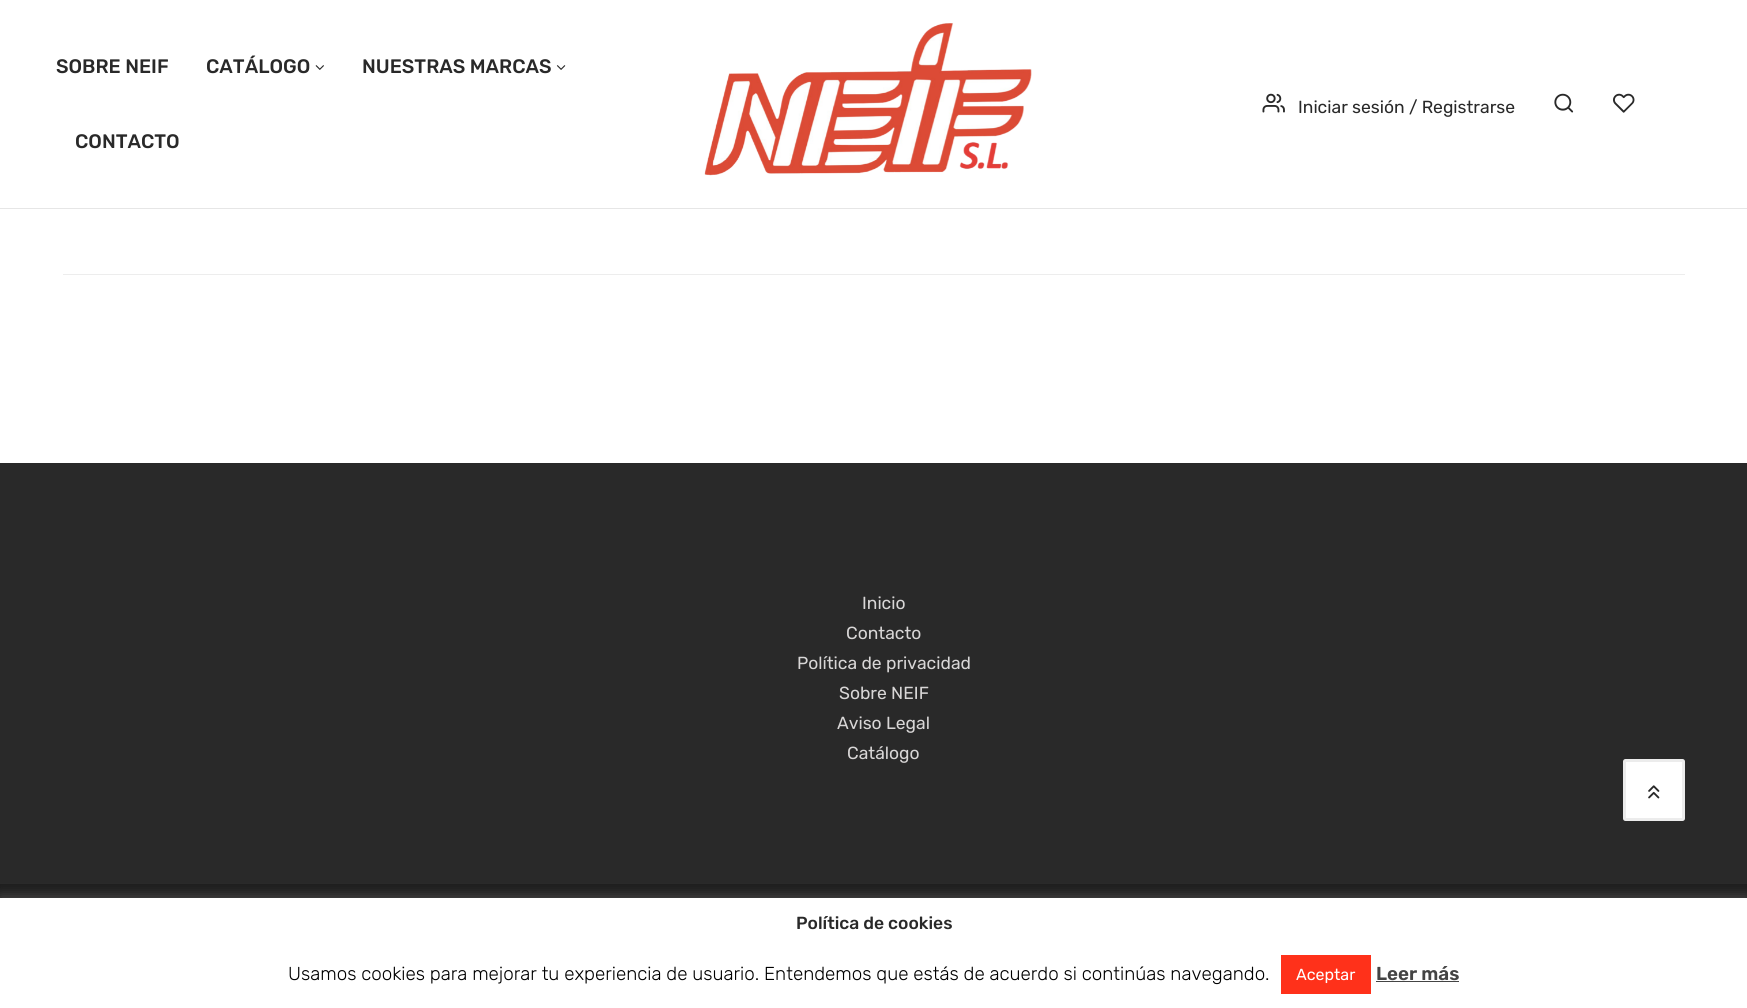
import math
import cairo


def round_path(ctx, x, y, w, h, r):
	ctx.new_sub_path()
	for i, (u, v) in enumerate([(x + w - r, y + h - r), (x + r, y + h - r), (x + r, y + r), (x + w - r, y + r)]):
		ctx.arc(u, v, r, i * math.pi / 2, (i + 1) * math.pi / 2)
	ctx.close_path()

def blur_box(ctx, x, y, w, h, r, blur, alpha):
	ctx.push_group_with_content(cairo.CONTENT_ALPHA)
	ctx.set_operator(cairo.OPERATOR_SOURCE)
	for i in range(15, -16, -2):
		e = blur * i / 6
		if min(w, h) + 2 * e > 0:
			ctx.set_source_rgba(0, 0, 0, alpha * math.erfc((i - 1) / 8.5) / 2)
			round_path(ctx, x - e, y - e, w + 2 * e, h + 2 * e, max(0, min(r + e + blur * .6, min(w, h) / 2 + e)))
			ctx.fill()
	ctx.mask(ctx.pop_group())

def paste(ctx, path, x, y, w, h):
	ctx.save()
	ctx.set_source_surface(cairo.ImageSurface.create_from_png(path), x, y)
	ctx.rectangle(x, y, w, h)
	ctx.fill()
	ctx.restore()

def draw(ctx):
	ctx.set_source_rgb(0.161, 0.161, 0.161)
	ctx.paint()
	ctx.set_source_rgb(1, 1, 1)
	ctx.rectangle(0, 0, 1747, 208)
	ctx.fill()
	ctx.set_source_rgb(0.902, 0.902, 0.902)
	ctx.rectangle(0, 208, 1747, 1)
	ctx.fill()
	ctx.select_font_face('Rubik Medium')
	ctx.set_font_size(19.5)
	ctx.set_source_rgb(0.161, 0.161, 0.161)
	ctx.move_to(56, 73)
	ctx.show_text('SOBRE NEIF')
	ctx.move_to(206, 73)
	ctx.show_text('CATÁLOGO')
	paste(ctx, 'media/1.png', 315, 65, 9, 5)
	ctx.move_to(362, 73)
	ctx.show_text('NUESTRAS MARCAS')
	paste(ctx, 'media/2.png', 556, 65, 10, 5)
	ctx.move_to(75, 148)
	ctx.show_text('CONTACTO')
	paste(ctx, 'media/3.png', 704, 23, 328, 153)
	paste(ctx, 'media/4.png', 1262, 93, 23, 20)
	ctx.select_font_face('Rubik')
	ctx.set_font_size(17.5)
	ctx.move_to(1298, 113)
	ctx.show_text('Iniciar sesión / Registrarse')
	paste(ctx, 'media/5.png', 1554, 93, 20, 20)
	paste(ctx, 'media/6.png', 1613, 93, 22, 20)
	ctx.set_source_rgb(1, 1, 1)
	ctx.rectangle(0, 209, 1747, 254)
	ctx.fill()
	ctx.set_source_rgb(0.929, 0.929, 0.929)
	ctx.rectangle(63, 274, 1622, 1)
	ctx.fill()
	ctx.set_source_rgb(0.847, 0.839, 0.839)
	for x, y, s in [
		(862, 609, 'Inicio'),
		(846, 639, 'Contacto'),
		(797, 669, 'Política de privacidad'),
		(839, 699, 'Sobre NEIF'),
		(837, 729, 'Aviso Legal'),
		(847, 759, 'Catálogo'),
	]:
		ctx.move_to(x, y)
		ctx.show_text(s)
	ctx.set_source_rgb(1, 1, 1)
	round_path(ctx, 1624.5, 760.5, 59, 59, 1)
	ctx.fill_preserve()
	ctx.set_source_rgb(0.922, 0.922, 0.922)
	ctx.set_line_width(3)
	ctx.stroke()
	paste(ctx, 'media/7.png', 1648, 785, 12, 14)
	ctx.set_source_rgb(0.118, 0.118, 0.118)
	ctx.rectangle(0, 884, 1747, 14)
	ctx.fill()
	ctx.set_source_rgb(0.675, 0.671, 0.671)
	blur_box(ctx, 0, 896, 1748, 112, 0, 6, 0.3)
	ctx.set_source_rgb(1, 1, 1)
	ctx.rectangle(0, 898, 1747, 110)
	ctx.fill()
	ctx.select_font_face('Rubik Medium')
	ctx.set_source_rgb(0.161, 0.161, 0.161)
	ctx.move_to(796, 929)
	ctx.show_text('Política de cookies')
	ctx.select_font_face('Rubik Light')
	ctx.set_font_size(18.75)
	ctx.set_source_rgb(0, 0, 0)
	ctx.move_to(288, 980)
	ctx.show_text('Usamos cookies para mejorar tu experiencia de usuario. Entendemos que estás de acuerdo si continúas navegando.')
	ctx.set_source_rgb(1, 0.192, 0.102)
	ctx.rectangle(1281, 955, 90, 39)
	ctx.fill()
	ctx.select_font_face('Rubik')
	ctx.set_font_size(16)
	ctx.set_source_rgb(1, 1, 1)
	ctx.move_to(1296, 980)
	ctx.show_text('Aceptar')
	ctx.select_font_face('Rubik SemiBold')
	ctx.set_font_size(18.75)
	ctx.set_source_rgb(0.267, 0.267, 0.267)
	ctx.move_to(1376, 980)
	ctx.show_text('Leer más')
	ctx.rectangle(1376, 981, 83, 1)
	ctx.fill()


surface = cairo.ImageSurface(cairo.FORMAT_RGB24, 1747, 1008)
ctx = cairo.Context(surface)
options = cairo.FontOptions()
options.set_hint_metrics(cairo.HINT_METRICS_OFF)
options.set_hint_style(cairo.HINT_STYLE_NONE)
ctx.set_font_options(options)
ctx.set_miter_limit(4)
draw(ctx)
surface.write_to_png('image.png')
